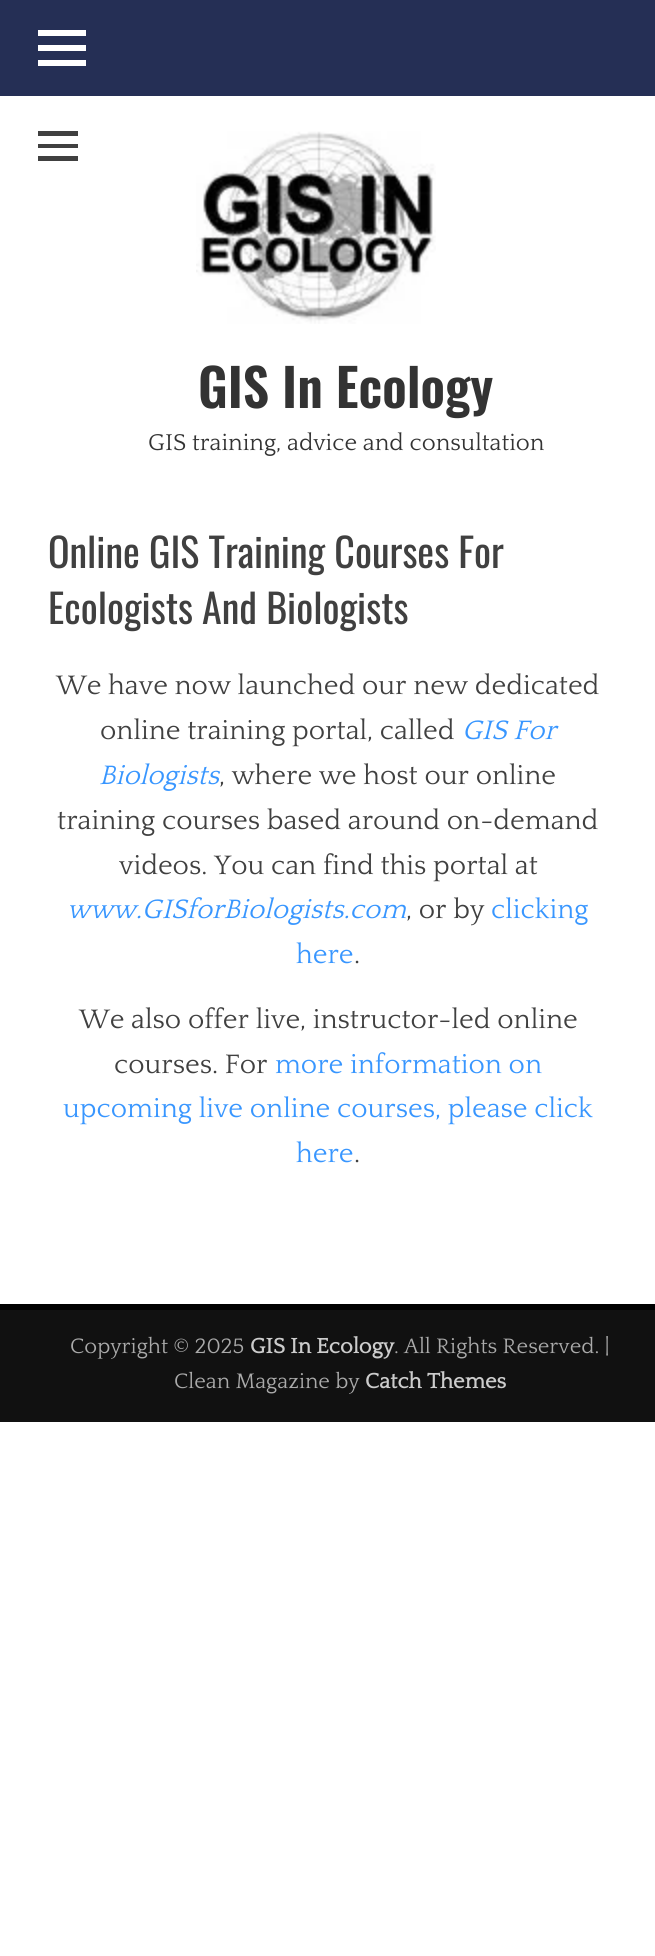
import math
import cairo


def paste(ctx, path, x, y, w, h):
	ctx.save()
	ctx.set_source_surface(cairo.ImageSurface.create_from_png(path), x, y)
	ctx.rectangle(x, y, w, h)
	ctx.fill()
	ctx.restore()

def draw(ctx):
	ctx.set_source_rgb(1, 1, 1)
	ctx.paint()
	ctx.set_source_rgb(0.145, 0.184, 0.333)
	ctx.rectangle(0, 0, 655, 96)
	ctx.fill()
	ctx.set_source_rgb(1, 1, 1)
	ctx.new_path()
	ctx.move_to(38, 66)
	ctx.line_to(38, 60)
	ctx.line_to(86, 60)
	ctx.line_to(86, 66)
	ctx.close_path()
	ctx.move_to(38, 30)
	ctx.line_to(86, 30)
	ctx.line_to(86, 36)
	ctx.line_to(38, 36)
	ctx.close_path()
	ctx.move_to(38, 51)
	ctx.line_to(38, 45)
	ctx.line_to(86, 45)
	ctx.line_to(86, 51)
	ctx.close_path()
	ctx.fill()
	ctx.set_source_rgb(0.251, 0.251, 0.251)
	ctx.new_path()
	ctx.move_to(38, 161)
	ctx.line_to(38, 156)
	ctx.line_to(78, 156)
	ctx.line_to(78, 161)
	ctx.close_path()
	ctx.move_to(38, 131)
	ctx.line_to(78, 131)
	ctx.line_to(78, 136)
	ctx.line_to(38, 136)
	ctx.close_path()
	ctx.move_to(38, 148)
	ctx.line_to(38, 144)
	ctx.line_to(78, 144)
	ctx.line_to(78, 148)
	ctx.close_path()
	ctx.fill()
	paste(ctx, 'media/1.png', 196, 131, 240, 193)
	ctx.select_font_face('Oswald SemiBold')
	ctx.set_font_size(52)
	ctx.set_source_rgb(0.2, 0.2, 0.2)
	ctx.move_to(198, 408)
	ctx.show_text('GIS In Ecology')
	ctx.select_font_face('Quattrocento')
	ctx.set_font_size(24)
	ctx.move_to(148, 450)
	ctx.show_text('GIS training, advice and consultation')
	ctx.select_font_face('Oswald')
	ctx.set_font_size(40)
	ctx.set_source_rgb(0.251, 0.251, 0.251)
	ctx.move_to(48, 568)
	ctx.show_text('Online GIS Training Courses For')
	ctx.move_to(48, 624)
	ctx.show_text('Ecologists And Biologists')
	ctx.select_font_face('Quattrocento')
	ctx.set_font_size(28)
	ctx.move_to(56, 694)
	ctx.show_text('We have now launched our new dedicated')
	ctx.move_to(100, 739)
	ctx.show_text('online training portal, called')
	ctx.select_font_face('Quattrocento', cairo.FONT_SLANT_ITALIC)
	ctx.set_source_rgb(0.22, 0.588, 1)
	ctx.move_to(462, 739)
	ctx.show_text('GIS For')
	ctx.move_to(99, 784)
	ctx.show_text('Biologists')
	ctx.select_font_face('Quattrocento')
	ctx.set_source_rgb(0.251, 0.251, 0.251)
	for x, y, s in [
		(219, 784, ', where we host our online'),
		(57, 829, 'training courses based around on-demand'),
		(119, 874, 'videos. You can find this portal at'),
	]:
		ctx.move_to(x, y)
		ctx.show_text(s)
	ctx.select_font_face('Quattrocento', cairo.FONT_SLANT_ITALIC)
	ctx.set_source_rgb(0.22, 0.588, 1)
	ctx.move_to(67, 918)
	ctx.show_text('www.GISforBiologists.com')
	ctx.select_font_face('Quattrocento')
	ctx.set_source_rgb(0.251, 0.251, 0.251)
	ctx.move_to(406, 918)
	ctx.show_text(', or by')
	ctx.set_source_rgb(0.22, 0.588, 1)
	ctx.move_to(491, 918)
	ctx.show_text('clicking')
	ctx.move_to(296, 963)
	ctx.show_text('here')
	ctx.set_source_rgb(0.251, 0.251, 0.251)
	for x, y, s in [
		(354, 963, '.'),
		(79, 1028, 'We also offer live, instructor-led online'),
		(114, 1073, 'courses. For'),
	]:
		ctx.move_to(x, y)
		ctx.show_text(s)
	ctx.set_source_rgb(0.22, 0.588, 1)
	for x, y, s in [
		(275, 1073, 'more information on'),
		(63, 1117, 'upcoming live online courses, please click'),
		(296, 1162, 'here'),
	]:
		ctx.move_to(x, y)
		ctx.show_text(s)
	ctx.set_source_rgb(0.251, 0.251, 0.251)
	ctx.move_to(354, 1162)
	ctx.show_text('.')
	ctx.set_source_rgb(0, 0, 0)
	ctx.rectangle(0, 1304, 655, 6)
	ctx.fill()
	ctx.set_source_rgb(0.067, 0.067, 0.067)
	ctx.rectangle(0, 1310, 655, 112)
	ctx.fill()
	ctx.set_font_size(22)
	ctx.set_source_rgb(0.667, 0.667, 0.667)
	ctx.move_to(70, 1353)
	ctx.show_text('Copyright © 2025')
	ctx.select_font_face('Quattrocento', cairo.FONT_SLANT_NORMAL, cairo.FONT_WEIGHT_BOLD)
	ctx.set_source_rgb(0.8, 0.8, 0.8)
	ctx.move_to(250, 1353)
	ctx.show_text('GIS In Ecology')
	ctx.select_font_face('Quattrocento')
	ctx.set_source_rgb(0.667, 0.667, 0.667)
	ctx.move_to(394, 1353)
	ctx.show_text('. All Rights Reserved. |')
	ctx.move_to(174, 1388)
	ctx.show_text('Clean Magazine by')
	ctx.select_font_face('Quattrocento', cairo.FONT_SLANT_NORMAL, cairo.FONT_WEIGHT_BOLD)
	ctx.set_source_rgb(0.8, 0.8, 0.8)
	ctx.move_to(365, 1388)
	ctx.show_text('Catch Themes')


surface = cairo.ImageSurface(cairo.FORMAT_RGB24, 655, 1956)
ctx = cairo.Context(surface)
options = cairo.FontOptions()
options.set_hint_metrics(cairo.HINT_METRICS_OFF)
options.set_hint_style(cairo.HINT_STYLE_NONE)
ctx.set_font_options(options)
ctx.set_miter_limit(4)
draw(ctx)
surface.write_to_png('image.png')
